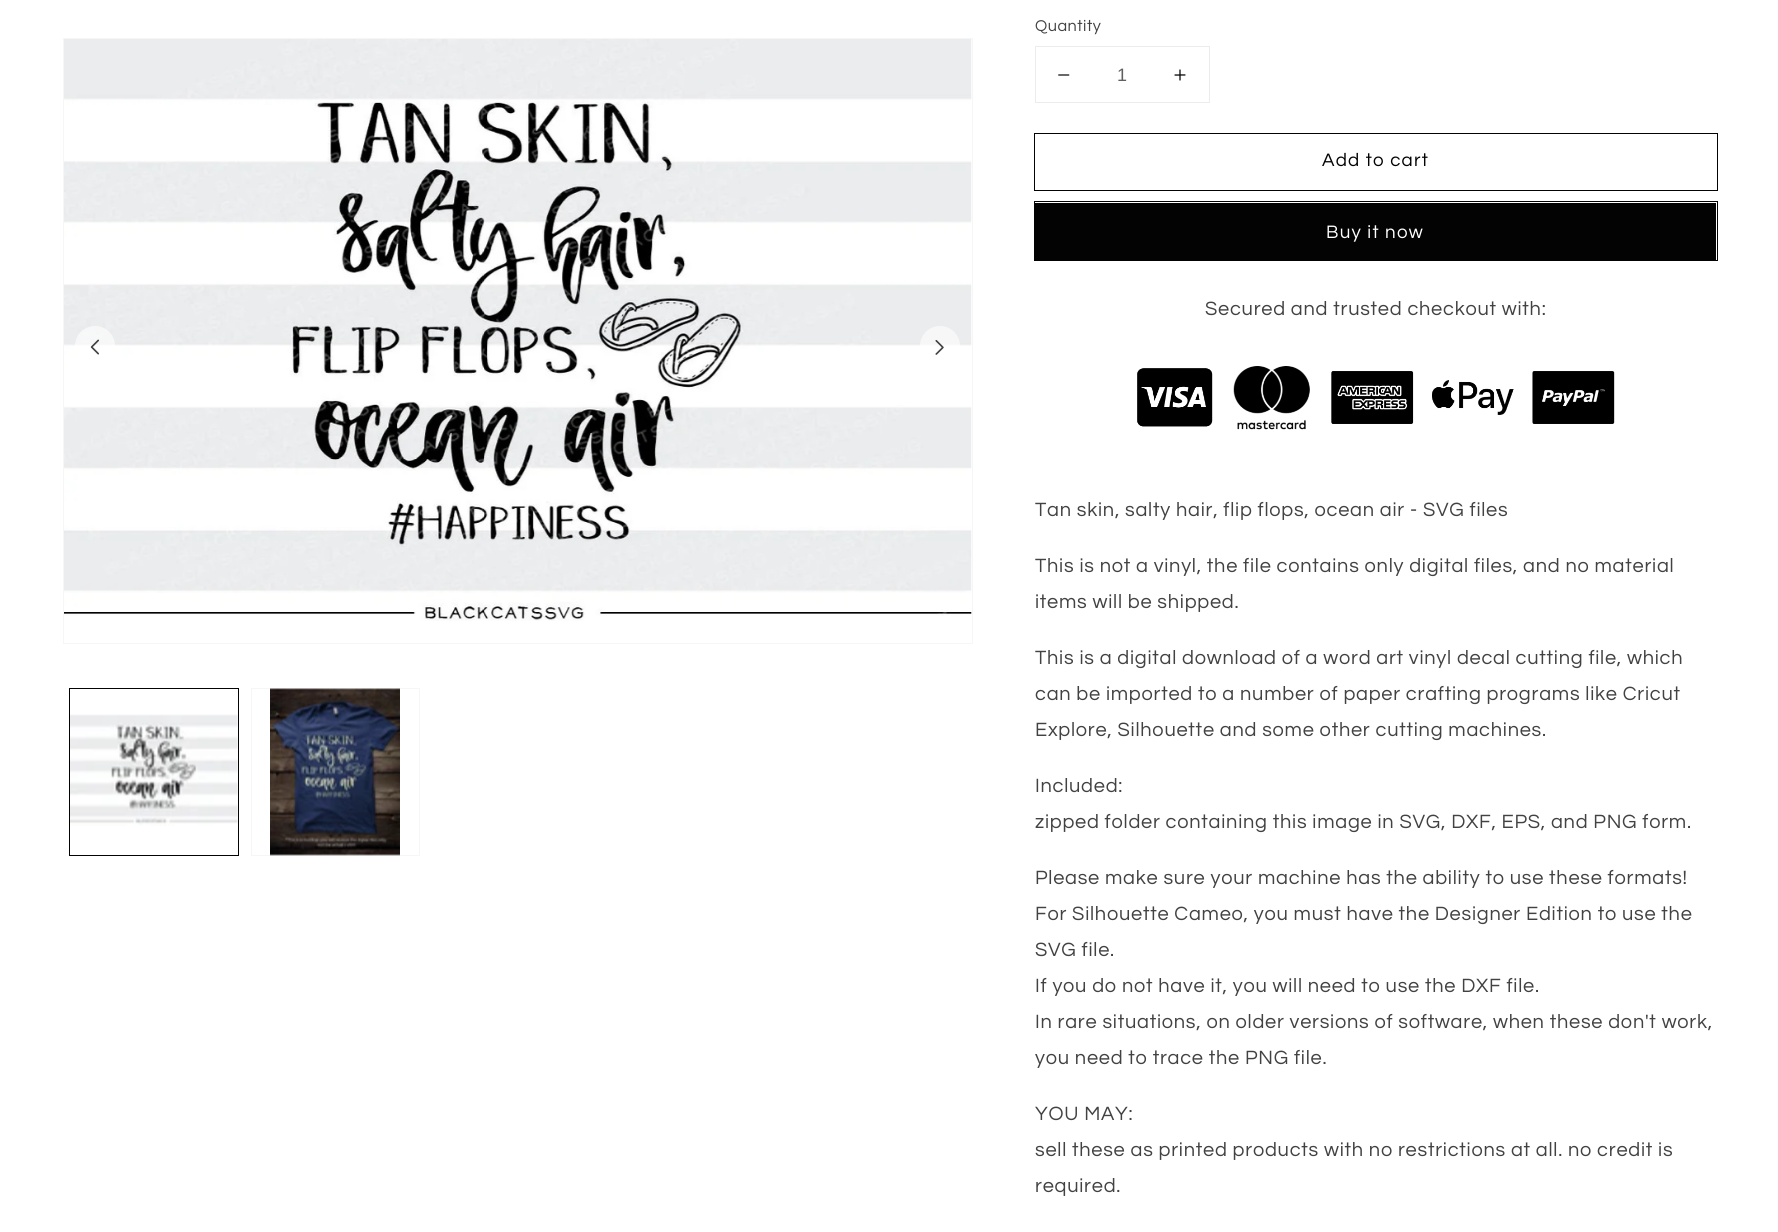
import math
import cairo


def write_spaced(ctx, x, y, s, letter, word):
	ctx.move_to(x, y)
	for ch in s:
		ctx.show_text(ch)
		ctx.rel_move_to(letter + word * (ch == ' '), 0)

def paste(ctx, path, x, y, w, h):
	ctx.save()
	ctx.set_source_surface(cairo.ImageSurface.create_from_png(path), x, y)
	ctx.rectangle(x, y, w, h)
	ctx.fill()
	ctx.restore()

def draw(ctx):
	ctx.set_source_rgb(1, 1, 1)
	ctx.paint()
	ctx.rectangle(63.5, 38.5, 909, 605)
	ctx.set_source_rgb(0.961, 0.961, 0.961)
	ctx.set_line_width(1)
	ctx.stroke()
	paste(ctx, 'media/1.png', 64, 39, 908, 582)
	ctx.set_source_rgba(1, 1, 1, 0.6)
	ctx.arc(95, 346, 20, 0, 2 * math.pi)
	ctx.fill()
	paste(ctx, 'media/2.png', 90, 339, 9, 16)
	ctx.arc(940, 346, 20, 0, 2 * math.pi)
	ctx.fill()
	paste(ctx, 'media/3.png', 935, 340, 9, 15)
	ctx.rectangle(69.5, 688.5, 169, 167)
	ctx.set_source_rgb(0.012, 0.012, 0.012)
	ctx.stroke()
	paste(ctx, 'media/4.png', 70, 714, 168, 112)
	ctx.rectangle(251.5, 688.5, 168, 167)
	ctx.set_source_rgb(0.961, 0.961, 0.961)
	ctx.stroke()
	paste(ctx, 'media/5.png', 270, 688, 130, 168)
	ctx.select_font_face('Questrial')
	ctx.set_font_size(16.25)
	ctx.set_source_rgb(0.259, 0.259, 0.259)
	write_spaced(ctx, 1035, 31, 'Quantity', 0.5, 0)
	ctx.rectangle(1035.5, 46.5, 174, 56)
	ctx.set_source_rgb(0.922, 0.922, 0.922)
	ctx.stroke()
	paste(ctx, 'media/6.png', 1058, 74, 12, 2)
	ctx.select_font_face('Liberation Sans')
	ctx.set_font_size(18)
	ctx.set_source_rgb(0.373, 0.373, 0.373)
	ctx.move_to(1117, 81)
	ctx.show_text('1')
	paste(ctx, 'media/7.png', 1174, 69, 12, 12)
	ctx.rectangle(1034.5, 133.5, 683, 57)
	ctx.set_source_rgb(0.012, 0.012, 0.012)
	ctx.stroke()
	ctx.select_font_face('Questrial')
	ctx.set_font_size(18.75)
	write_spaced(ctx, 1322, 166, 'Add to cart', 1.25, 0)
	ctx.rectangle(1034.5, 201.5, 683, 59)
	ctx.stroke()
	ctx.rectangle(1035, 203, 681, 57)
	ctx.fill()
	ctx.set_source_rgb(1, 1, 1)
	write_spaced(ctx, 1326, 238, 'Buy it now', 1.25, 0)
	ctx.set_font_size(20)
	ctx.set_source_rgb(0.259, 0.259, 0.259)
	write_spaced(ctx, 1205, 315, 'Secured and trusted checkout with:', 0.75, 0)
	paste(ctx, 'media/8.png', 1137, 366, 478, 64)
	for x, y, s in [
		(1035, 516, 'Tan skin, salty hair, flip flops, ocean air - SVG files'),
		(1035, 572, 'This is not a vinyl, the file contains only digital files, and no material'),
		(1035, 608, 'items will be shipped.'),
		(1035, 664, 'This is a digital download of a word art vinyl decal cutting file, which'),
		(1035, 700, 'can be imported to a number of paper crafting programs like Cricut'),
		(1035, 736, 'Explore, Silhouette and some other cutting machines.'),
		(1035, 792, 'Included:'),
		(1035, 828, 'zipped folder containing this image in SVG, DXF, EPS, and PNG form.'),
		(1035, 884, 'Please make sure your machine has the ability to use these formats!'),
		(1035, 920, 'For Silhouette Cameo, you must have the Designer Edition to use the'),
		(1035, 956, 'SVG file.'),
		(1035, 992, 'If you do not have it, you will need to use the DXF file.'),
		(1035, 1028, 'In rare situations, on older versions of software, when these don\'t work,'),
		(1035, 1064, 'you need to trace the PNG file.'),
		(1035, 1120, 'YOU MAY:'),
		(1035, 1156, 'sell these as printed products with no restrictions at all. no credit is'),
		(1035, 1192, 'required.'),
	]:
		write_spaced(ctx, x, y, s, 0.75, 0)


surface = cairo.ImageSurface(cairo.FORMAT_RGB24, 1778, 1232)
ctx = cairo.Context(surface)
options = cairo.FontOptions()
options.set_hint_metrics(cairo.HINT_METRICS_OFF)
options.set_hint_style(cairo.HINT_STYLE_NONE)
ctx.set_font_options(options)
ctx.set_miter_limit(4)
draw(ctx)
surface.write_to_png('image.png')
